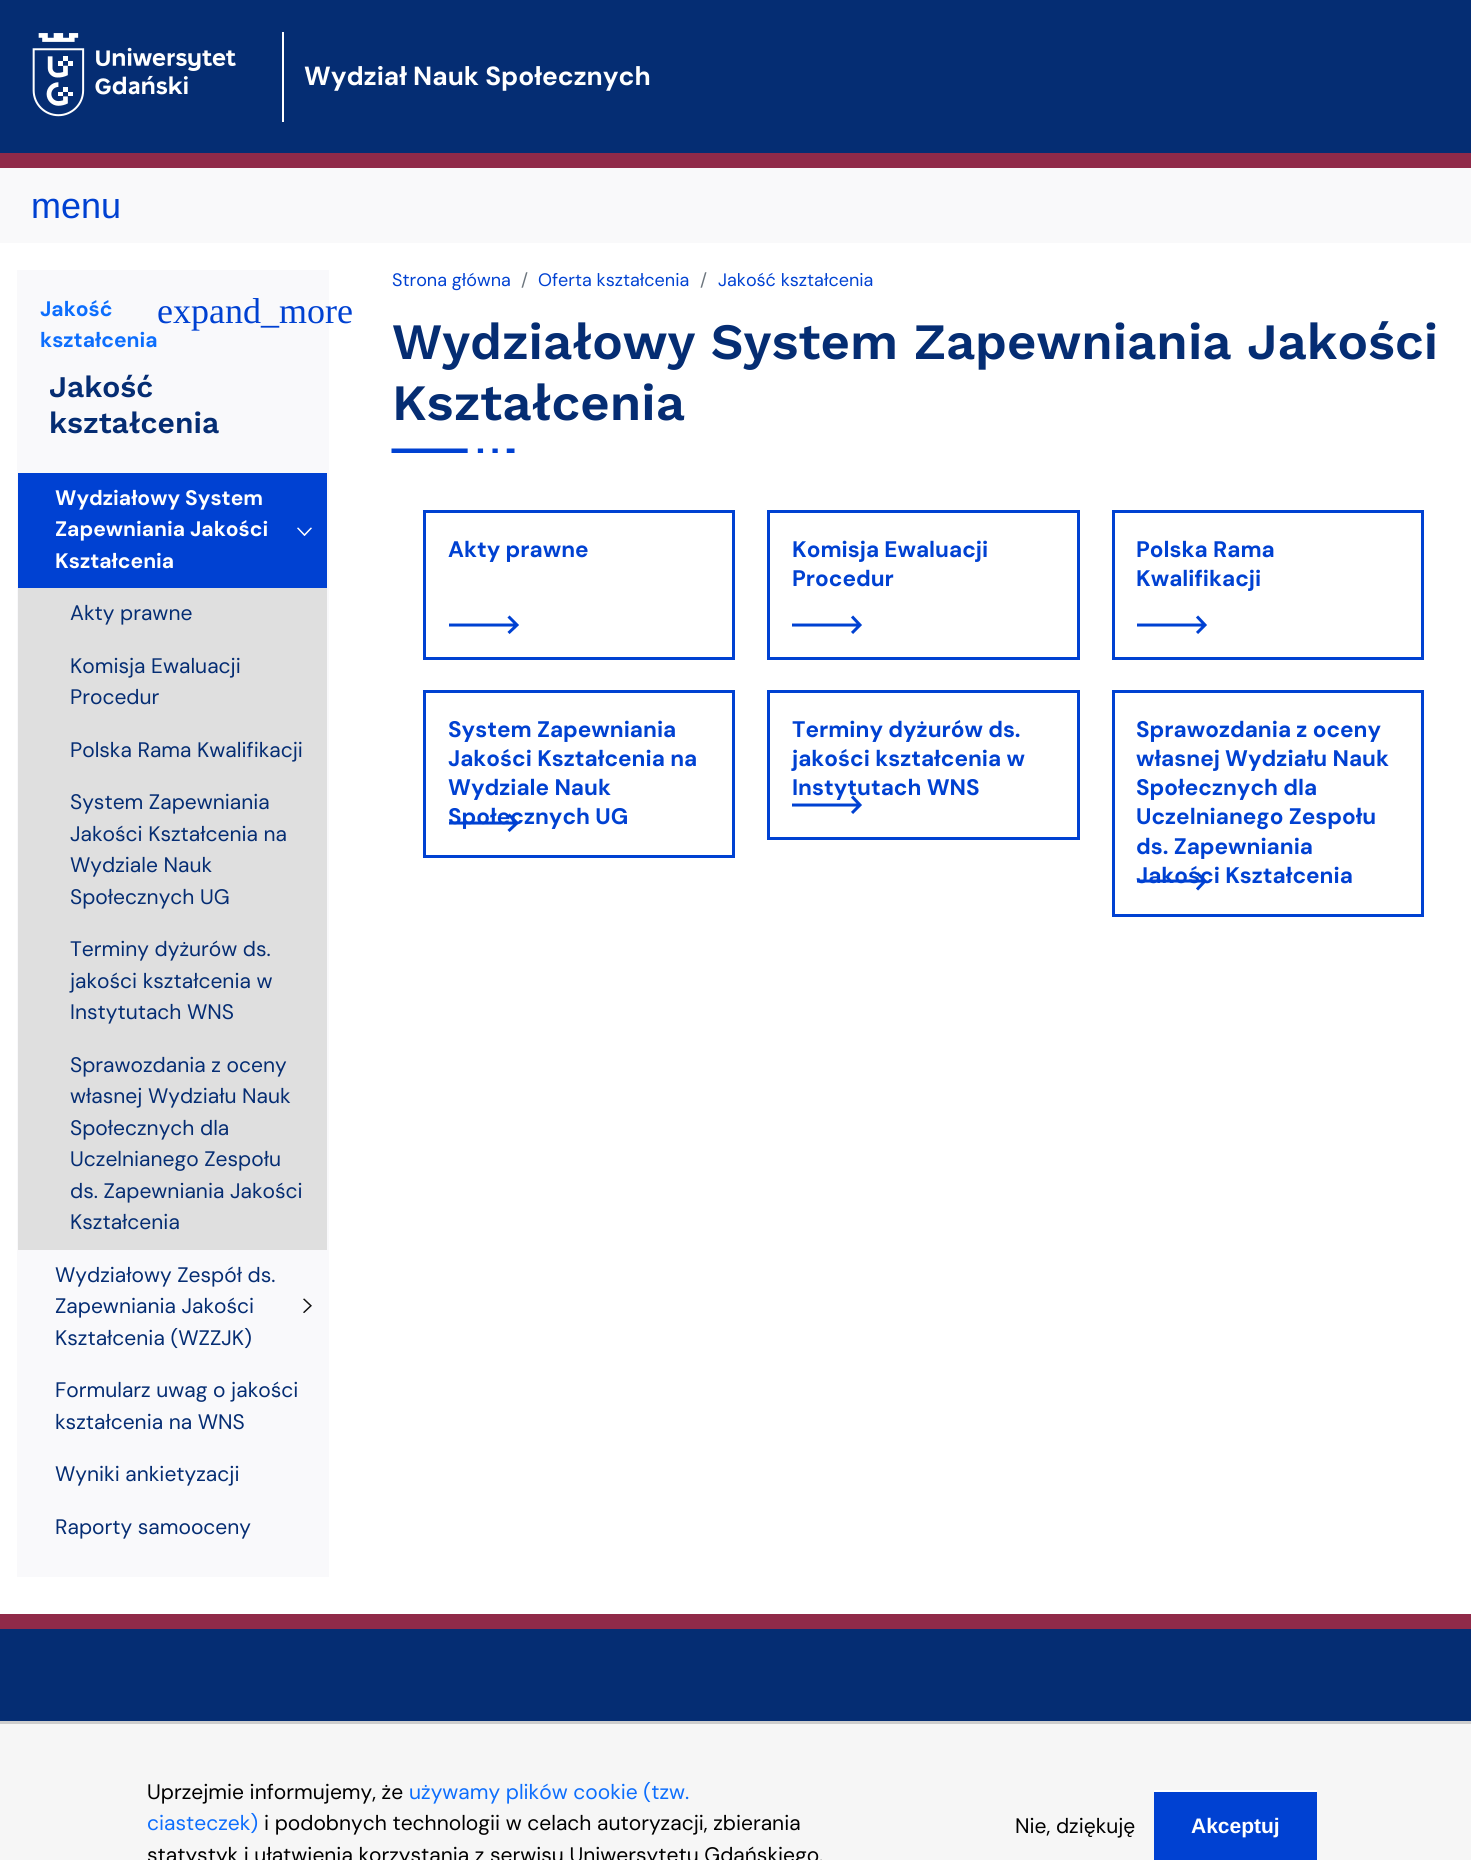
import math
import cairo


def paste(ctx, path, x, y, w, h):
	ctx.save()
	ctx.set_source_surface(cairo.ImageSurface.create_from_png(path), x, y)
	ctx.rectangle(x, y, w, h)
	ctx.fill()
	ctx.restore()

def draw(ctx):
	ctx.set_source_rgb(1, 1, 1)
	ctx.paint()
	ctx.set_source_rgb(0.02, 0.176, 0.451)
	ctx.rectangle(0, 0, 1471, 153)
	ctx.fill()
	ctx.set_source_rgb(1, 1, 1)
	ctx.rectangle(282, 32, 2, 90)
	ctx.fill()
	paste(ctx, 'media/1.png', 32, 33, 204, 84)
	ctx.select_font_face('DM Sans', cairo.FONT_SLANT_NORMAL, cairo.FONT_WEIGHT_BOLD)
	ctx.set_font_size(26.25)
	ctx.move_to(304, 85)
	ctx.show_text('Wydział Nauk Społecznych')
	ctx.set_source_rgb(0.973, 0.976, 0.98)
	ctx.rectangle(0, 168, 1471, 75)
	ctx.fill()
	ctx.set_source_rgb(0.565, 0.165, 0.286)
	ctx.rectangle(0, 153, 1471, 15)
	ctx.fill()
	ctx.select_font_face('Liberation Sans')
	ctx.set_font_size(36)
	ctx.set_source_rgb(0, 0.255, 0.824)
	ctx.move_to(31, 218)
	ctx.show_text('menu')
	ctx.set_source_rgb(0.973, 0.976, 0.984)
	ctx.rectangle(17, 270, 312, 1307)
	ctx.fill()
	ctx.select_font_face('DM Sans', cairo.FONT_SLANT_NORMAL, cairo.FONT_WEIGHT_BOLD)
	ctx.set_font_size(21)
	ctx.set_source_rgb(0.051, 0.431, 0.992)
	ctx.move_to(40, 316)
	ctx.show_text('Jakość')
	ctx.move_to(40, 347)
	ctx.show_text('kształcenia')
	ctx.select_font_face('Liberation Serif')
	ctx.set_font_size(36)
	ctx.set_source_rgb(0, 0.255, 0.824)
	ctx.move_to(157, 323)
	ctx.show_text('expand_more')
	ctx.select_font_face('Work Sans SemiBold')
	ctx.set_font_size(30)
	ctx.set_source_rgb(0.02, 0.176, 0.451)
	ctx.move_to(49, 397)
	ctx.show_text('Jakość')
	ctx.move_to(49, 433)
	ctx.show_text('kształcenia')
	ctx.set_source_rgb(0, 0.255, 0.824)
	ctx.rectangle(18, 473, 309, 115)
	ctx.fill()
	ctx.select_font_face('DM Sans', cairo.FONT_SLANT_NORMAL, cairo.FONT_WEIGHT_BOLD)
	ctx.set_font_size(21)
	ctx.set_source_rgb(1, 1, 1)
	ctx.move_to(55, 505)
	ctx.show_text('Wydziałowy System')
	ctx.move_to(55, 536)
	ctx.show_text('Zapewniania Jakości')
	paste(ctx, 'media/2.png', 297, 527, 15, 9)
	ctx.move_to(55, 568)
	ctx.show_text('Kształcenia')
	ctx.set_source_rgb(0.875, 0.875, 0.875)
	ctx.rectangle(18, 588, 309, 662)
	ctx.fill()
	ctx.select_font_face('DM Sans')
	ctx.set_source_rgb(0.02, 0.176, 0.451)
	for x, y, s in [
		(70, 620, 'Akty prawne'),
		(70, 673, 'Komisja Ewaluacji'),
		(70, 704, 'Procedur'),
		(70, 757, 'Polska Rama Kwalifikacji'),
		(70, 809, 'System Zapewniania'),
		(70, 841, 'Jakości Kształcenia na'),
		(70, 872, 'Wydziale Nauk'),
		(70, 904, 'Społecznych UG'),
		(70, 956, 'Terminy dyżurów ds.'),
		(70, 988, 'jakości kształcenia w'),
		(70, 1019, 'Instytutach WNS'),
		(70, 1072, 'Sprawozdania z oceny'),
		(70, 1103, 'własnej Wydziału Nauk'),
		(70, 1135, 'Społecznych dla'),
		(70, 1166, 'Uczelnianego Zespołu'),
		(70, 1198, 'ds. Zapewniania Jakości'),
		(70, 1229, 'Kształcenia'),
		(55, 1282, 'Wydziałowy Zespół ds.'),
		(55, 1313, 'Zapewniania Jakości'),
	]:
		ctx.move_to(x, y)
		ctx.show_text(s)
	paste(ctx, 'media/3.png', 303, 1298, 9, 15)
	for x, y, s in [
		(55, 1345, 'Kształcenia (WZZJK)'),
		(55, 1397, 'Formularz uwag o jakości'),
		(55, 1429, 'kształcenia na WNS'),
		(55, 1481, 'Wyniki ankietyzacji'),
		(55, 1534, 'Raporty samooceny'),
	]:
		ctx.move_to(x, y)
		ctx.show_text(s)
	ctx.set_font_size(18)
	ctx.set_source_rgb(0, 0.255, 0.824)
	ctx.move_to(392, 286)
	ctx.show_text('Strona główna')
	ctx.set_source_rgb(0.424, 0.459, 0.49)
	ctx.move_to(521, 286)
	ctx.show_text('/')
	ctx.set_source_rgb(0, 0.255, 0.824)
	ctx.move_to(538, 286)
	ctx.show_text('Oferta kształcenia')
	ctx.set_source_rgb(0.424, 0.459, 0.49)
	ctx.move_to(700, 286)
	ctx.show_text('/')
	ctx.set_source_rgb(0, 0.255, 0.824)
	ctx.move_to(718, 286)
	ctx.show_text('Jakość kształcenia')
	ctx.select_font_face('Work Sans SemiBold')
	ctx.set_font_size(50.95)
	ctx.set_source_rgb(0.02, 0.176, 0.451)
	ctx.move_to(392, 359)
	ctx.show_text('Wydziałowy System Zapewniania Jakości')
	ctx.move_to(392, 420)
	ctx.show_text('Kształcenia')
	paste(ctx, 'media/4.png', 391, 448, 124, 5)
	ctx.save()
	ctx.rectangle(449, 615, 70, 20)
	ctx.clip()
	ctx.new_path()
	ctx.move_to(448.5, 625)
	ctx.line_to(515, 625)
	ctx.move_to(508.5, 616.5)
	ctx.line_to(517, 625)
	ctx.line_to(508.5, 633)
	ctx.set_source_rgb(0, 0.255, 0.824)
	ctx.set_line_width(3)
	ctx.stroke()
	ctx.restore()
	ctx.rectangle(424.5, 511.5, 309, 147)
	ctx.set_source_rgb(0, 0.255, 0.824)
	ctx.set_line_width(3)
	ctx.stroke()
	ctx.select_font_face('DM Sans', cairo.FONT_SLANT_NORMAL, cairo.FONT_WEIGHT_BOLD)
	ctx.set_font_size(22.5)
	ctx.move_to(448, 557)
	ctx.show_text('Akty prawne')
	ctx.new_path()
	ctx.move_to(792, 625)
	ctx.line_to(859, 625)
	ctx.move_to(852, 616.5)
	ctx.line_to(860, 625)
	ctx.line_to(852, 633)
	ctx.stroke()
	ctx.rectangle(768.5, 511.5, 310, 147)
	ctx.stroke()
	ctx.move_to(792, 557)
	ctx.show_text('Komisja Ewaluacji')
	ctx.move_to(792, 586)
	ctx.show_text('Procedur')
	ctx.new_path()
	ctx.move_to(1137, 625)
	ctx.line_to(1204, 625)
	ctx.move_to(1197, 616.5)
	ctx.line_to(1205, 625)
	ctx.line_to(1197, 633)
	ctx.stroke()
	ctx.rectangle(1113.5, 511.5, 309, 147)
	ctx.stroke()
	ctx.move_to(1136, 557)
	ctx.show_text('Polska Rama')
	ctx.move_to(1136, 586)
	ctx.show_text('Kwalifikacji')
	ctx.save()
	ctx.rectangle(449, 813, 70, 20)
	ctx.clip()
	ctx.new_path()
	ctx.move_to(448.5, 823)
	ctx.line_to(515, 823)
	ctx.move_to(508.5, 814.5)
	ctx.line_to(517, 823)
	ctx.line_to(508.5, 831)
	ctx.stroke()
	ctx.restore()
	ctx.rectangle(424.5, 691.5, 309, 165)
	ctx.stroke()
	for x, y, s in [
		(448, 737, 'System Zapewniania'),
		(448, 766, 'Jakości Kształcenia na'),
		(448, 795, 'Wydziale Nauk'),
		(448, 824, 'Społecznych UG'),
	]:
		ctx.move_to(x, y)
		ctx.show_text(s)
	ctx.new_path()
	ctx.move_to(792, 805)
	ctx.line_to(859, 805)
	ctx.move_to(852, 796.5)
	ctx.line_to(860, 805)
	ctx.line_to(852, 813)
	ctx.stroke()
	ctx.rectangle(768.5, 691.5, 310, 147)
	ctx.stroke()
	for x, y, s in [
		(792, 737, 'Terminy dyżurów ds.'),
		(792, 766, 'jakości kształcenia w'),
		(792, 795, 'Instytutach WNS'),
	]:
		ctx.move_to(x, y)
		ctx.show_text(s)
	ctx.new_path()
	ctx.move_to(1137, 881)
	ctx.line_to(1204, 881)
	ctx.move_to(1197, 873)
	ctx.line_to(1205, 881)
	ctx.line_to(1197, 889.5)
	ctx.stroke()
	ctx.rectangle(1113.5, 691.5, 309, 224)
	ctx.stroke()
	for x, y, s in [
		(1136, 737, 'Sprawozdania z oceny'),
		(1136, 766, 'własnej Wydziału Nauk'),
		(1136, 795, 'Społecznych dla'),
		(1136, 824, 'Uczelnianego Zespołu'),
		(1136, 854, 'ds. Zapewniania'),
		(1136, 883, 'Jakości Kształcenia'),
	]:
		ctx.move_to(x, y)
		ctx.show_text(s)
	ctx.set_source_rgb(0.02, 0.176, 0.451)
	ctx.rectangle(0, 1629, 1471, 92)
	ctx.fill()
	ctx.set_source_rgb(0.565, 0.165, 0.286)
	ctx.rectangle(0, 1614, 1471, 15)
	ctx.fill()
	ctx.set_source_rgb(0.961, 0.961, 0.961)
	ctx.rectangle(0, 1724, 1471, 136)
	ctx.fill()
	ctx.set_source_rgb(0.804, 0.804, 0.804)
	ctx.rectangle(0, 1721, 1471, 3)
	ctx.fill()
	ctx.select_font_face('DM Sans')
	ctx.set_font_size(21)
	ctx.set_source_rgb(0, 0, 0)
	ctx.move_to(147, 1799)
	ctx.show_text('Uprzejmie informujemy, że')
	ctx.set_source_rgb(0.051, 0.431, 0.992)
	ctx.move_to(409, 1799)
	ctx.show_text('używamy plików cookie (tzw.')
	ctx.move_to(147, 1830)
	ctx.show_text('ciasteczek)')
	ctx.set_source_rgb(0, 0, 0)
	for x, y, s in [
		(264, 1830, 'i podobnych technologii w celach autoryzacji, zbierania'),
		(147, 1862, 'statystyk i ułatwienia korzystania z serwisu Uniwersytetu Gdańskiego.'),
		(1015, 1833, 'Nie, dziękuję'),
	]:
		ctx.move_to(x, y)
		ctx.show_text(s)
	ctx.set_source_rgb(0, 0.255, 0.824)
	ctx.rectangle(1154, 1792, 163, 68)
	ctx.fill()
	ctx.set_source_rgb(1, 1, 1)
	ctx.rectangle(1154, 1790, 163, 2)
	ctx.fill()
	ctx.select_font_face('Liberation Sans', cairo.FONT_SLANT_NORMAL, cairo.FONT_WEIGHT_BOLD)
	ctx.move_to(1191, 1833)
	ctx.show_text('Akceptuj')


surface = cairo.ImageSurface(cairo.FORMAT_RGB24, 1471, 1860)
ctx = cairo.Context(surface)
options = cairo.FontOptions()
options.set_hint_metrics(cairo.HINT_METRICS_OFF)
options.set_hint_style(cairo.HINT_STYLE_NONE)
ctx.set_font_options(options)
ctx.set_miter_limit(4)
draw(ctx)
surface.write_to_png('image.png')
